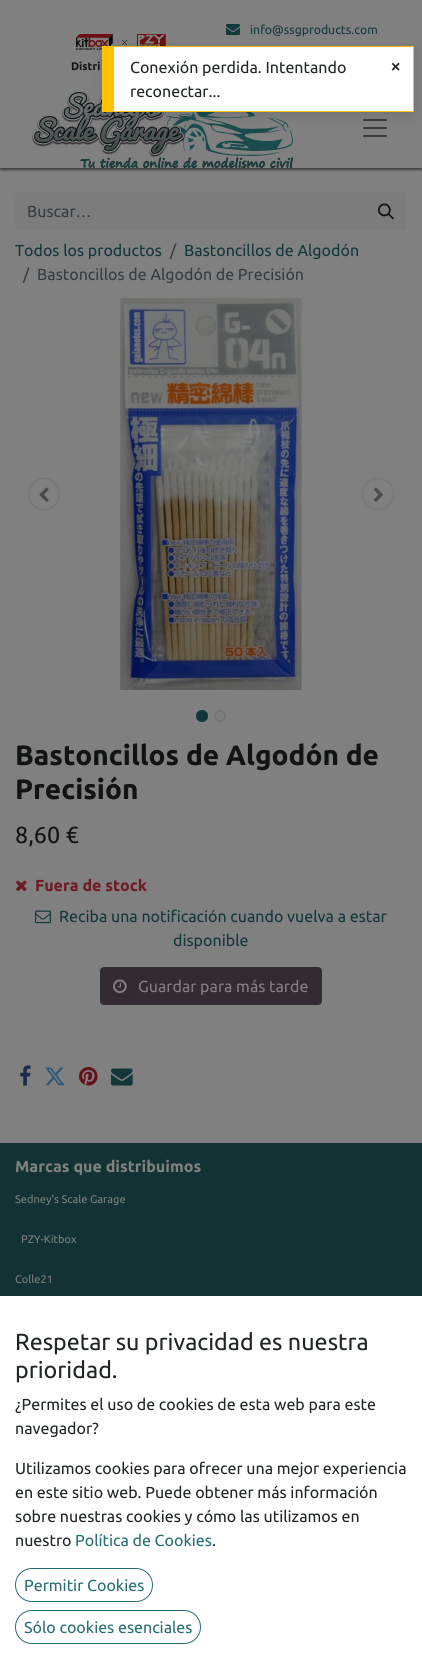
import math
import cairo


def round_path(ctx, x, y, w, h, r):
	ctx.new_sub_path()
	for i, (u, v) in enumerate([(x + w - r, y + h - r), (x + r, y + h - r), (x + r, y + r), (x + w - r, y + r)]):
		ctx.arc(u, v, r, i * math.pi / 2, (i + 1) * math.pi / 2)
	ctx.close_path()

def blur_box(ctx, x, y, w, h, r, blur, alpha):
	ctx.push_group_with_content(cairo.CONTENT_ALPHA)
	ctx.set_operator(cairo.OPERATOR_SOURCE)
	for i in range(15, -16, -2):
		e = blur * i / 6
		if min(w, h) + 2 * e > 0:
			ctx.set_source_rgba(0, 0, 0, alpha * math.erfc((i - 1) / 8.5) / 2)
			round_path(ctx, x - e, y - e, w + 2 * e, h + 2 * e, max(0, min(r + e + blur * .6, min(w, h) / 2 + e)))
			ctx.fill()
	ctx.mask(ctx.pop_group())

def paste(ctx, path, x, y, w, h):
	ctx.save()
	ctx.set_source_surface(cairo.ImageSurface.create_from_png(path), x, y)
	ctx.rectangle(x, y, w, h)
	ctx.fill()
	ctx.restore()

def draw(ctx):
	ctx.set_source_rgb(0.502, 0.502, 0.502)
	ctx.paint()
	ctx.save()
	ctx.rectangle(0, 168, 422, 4)
	ctx.clip()
	ctx.set_source_rgb(0, 0, 0)
	blur_box(ctx, 0, 2, 422, 168, 0, 1, 0.5)
	ctx.restore()
	paste(ctx, 'media/1.png', 226, 24, 14, 11)
	ctx.select_font_face('Ubuntu')
	ctx.set_font_size(12.25)
	ctx.set_source_rgb(0.078, 0.216, 0.224)
	ctx.move_to(250, 34)
	ctx.show_text('info@ssgproducts.com')
	paste(ctx, 'media/2.png', 76, 34, 90, 16)
	ctx.select_font_face('Ubuntu', cairo.FONT_SLANT_NORMAL, cairo.FONT_WEIGHT_BOLD)
	ctx.set_font_size(11)
	ctx.set_source_rgb(0.067, 0.075, 0.082)
	ctx.move_to(71, 70)
	ctx.show_text('Distri')
	paste(ctx, 'media/3.png', 32, 90, 261, 78)
	paste(ctx, 'media/4.png', 363, 119, 24, 18)
	ctx.set_source_rgb(0.486, 0.486, 0.486)
	ctx.new_path()
	ctx.move_to(19, 192)
	ctx.line_to(366, 192)
	ctx.line_to(366, 230)
	ctx.line_to(19, 230)
	ctx.curve_to(17, 230, 15, 228, 15, 226)
	ctx.line_to(15, 196)
	ctx.curve_to(15, 194, 17, 192, 19, 192)
	ctx.close_path()
	ctx.fill()
	ctx.select_font_face('Ubuntu')
	ctx.set_font_size(16)
	ctx.set_source_rgb(0.212, 0.231, 0.247)
	ctx.move_to(27, 217)
	ctx.show_text('Buscar…')
	ctx.set_source_rgb(0.486, 0.486, 0.486)
	ctx.new_path()
	ctx.move_to(365, 192)
	ctx.line_to(403, 192)
	ctx.curve_to(405, 192, 407, 194, 407, 196)
	ctx.line_to(407, 226)
	ctx.curve_to(407, 228, 405, 230, 403, 230)
	ctx.line_to(365, 230)
	ctx.close_path()
	ctx.fill()
	paste(ctx, 'media/5.png', 378, 203, 16, 17)
	ctx.set_source_rgb(0.078, 0.216, 0.224)
	ctx.move_to(15, 256)
	ctx.show_text('Todos los productos')
	ctx.set_source_rgb(0.212, 0.231, 0.247)
	ctx.move_to(170, 256)
	ctx.show_text('/')
	ctx.set_source_rgb(0.078, 0.216, 0.224)
	ctx.move_to(184, 256)
	ctx.show_text('Bastoncillos de Algodón')
	ctx.set_source_rgb(0.212, 0.231, 0.247)
	ctx.move_to(23, 280)
	ctx.show_text('/')
	ctx.move_to(37, 280)
	ctx.show_text('Bastoncillos de Algodón de Precisión')
	ctx.new_path()
	ctx.arc(44, 494, 15.5, 0, 2 * math.pi)
	ctx.set_source_rgb(0.455, 0.459, 0.467)
	ctx.set_line_width(1)
	ctx.stroke()
	paste(ctx, 'media/6.png', 39, 487, 10, 15)
	paste(ctx, 'media/7.png', 120, 298, 183, 392)
	ctx.arc(378, 494, 15.5, 0, 2 * math.pi)
	ctx.stroke()
	paste(ctx, 'media/8.png', 373, 487, 10, 15)
	ctx.set_source_rgb(0.078, 0.216, 0.224)
	ctx.arc(202, 716, 5, 0, 2 * math.pi)
	ctx.fill_preserve()
	ctx.set_line_width(2)
	ctx.stroke()
	ctx.arc(220, 716, 5, 0, 2 * math.pi)
	ctx.set_source_rgb(0.455, 0.459, 0.467)
	ctx.stroke()
	ctx.select_font_face('Ubuntu', cairo.FONT_SLANT_NORMAL, cairo.FONT_WEIGHT_BOLD)
	ctx.set_font_size(28)
	ctx.set_source_rgb(0.067, 0.075, 0.082)
	ctx.move_to(15, 765)
	ctx.show_text('Bastoncillos de Algodón de')
	ctx.move_to(15, 799)
	ctx.show_text('Precisión')
	ctx.select_font_face('Ubuntu')
	ctx.set_font_size(23.3)
	ctx.move_to(15, 843)
	ctx.show_text('8,60 €')
	paste(ctx, 'media/9.png', 16, 880, 11, 12)
	ctx.select_font_face('Ubuntu', cairo.FONT_SLANT_NORMAL, cairo.FONT_WEIGHT_BOLD)
	ctx.set_font_size(16)
	ctx.set_source_rgb(0.431, 0.106, 0.137)
	ctx.move_to(35, 891)
	ctx.show_text('Fuera de stock')
	paste(ctx, 'media/10.png', 35, 910, 16, 14)
	ctx.select_font_face('Ubuntu')
	ctx.set_source_rgb(0.078, 0.216, 0.224)
	ctx.move_to(59, 922)
	ctx.show_text('Reciba una notificación cuando vuelva a estar')
	ctx.move_to(173, 946)
	ctx.show_text('disponible')
	ctx.set_source_rgb(0.204, 0.169, 0.196)
	round_path(ctx, 100.5, 967.5, 221, 37, 3.5)
	ctx.fill_preserve()
	ctx.set_line_width(1)
	ctx.stroke()
	paste(ctx, 'media/11.png', 113, 979, 14, 15)
	ctx.set_source_rgb(0.502, 0.502, 0.502)
	ctx.move_to(138, 992)
	ctx.show_text('Guardar para más tarde')
	paste(ctx, 'media/12.png', 20, 1065, 11, 21)
	paste(ctx, 'media/13.png', 45, 1067, 20, 19)
	paste(ctx, 'media/14.png', 79, 1067, 19, 19)
	paste(ctx, 'media/15.png', 111, 1068, 22, 18)
	ctx.set_source_rgb(0.071, 0.196, 0.2)
	ctx.rectangle(0, 1143, 422, 153)
	ctx.fill()
	ctx.select_font_face('Ubuntu', cairo.FONT_SLANT_NORMAL, cairo.FONT_WEIGHT_BOLD)
	ctx.set_source_rgb(0.502, 0.502, 0.502)
	ctx.move_to(15, 1172)
	ctx.show_text('Marcas que distribuimos')
	ctx.select_font_face('Ubuntu')
	ctx.set_font_size(11)
	for x, y, s in [
		(15, 1203, 'Sedney\'s Scale Garage'),
		(21, 1243, 'PZY-Kitbox'),
		(15, 1283, 'Colle21'),
	]:
		ctx.move_to(x, y)
		ctx.show_text(s)
	ctx.set_source_rgb(1, 1, 1)
	ctx.rectangle(0, 1296, 422, 372)
	ctx.fill()
	ctx.set_font_size(23.3)
	ctx.set_source_rgb(0.129, 0.145, 0.161)
	ctx.move_to(15, 1350)
	ctx.show_text('Respetar su privacidad es nuestra')
	ctx.move_to(15, 1378)
	ctx.show_text('prioridad.')
	ctx.set_font_size(16)
	for x, y, s in [
		(15, 1410, '¿Permites el uso de cookies de esta web para este'),
		(15, 1434, 'navegador?'),
		(15, 1474, 'Utilizamos cookies para ofrecer una mejor experiencia'),
		(15, 1498, 'en este sitio web. Puede obtener más información'),
		(15, 1522, 'sobre nuestras cookies y cómo las utilizamos en'),
		(15, 1546, 'nuestro'),
	]:
		ctx.move_to(x, y)
		ctx.show_text(s)
	ctx.set_source_rgb(0.153, 0.431, 0.447)
	ctx.move_to(75, 1546)
	ctx.show_text('Política de Cookies')
	ctx.set_source_rgb(0.129, 0.145, 0.161)
	ctx.move_to(212, 1546)
	ctx.show_text('.')
	round_path(ctx, 15.5, 1568.5, 137, 33, 16.5)
	ctx.set_source_rgb(0.153, 0.431, 0.447)
	ctx.stroke()
	ctx.move_to(24, 1591)
	ctx.show_text('Permitir Cookies')
	round_path(ctx, 15.5, 1610.5, 185, 33, 16.5)
	ctx.stroke()
	ctx.move_to(24, 1633)
	ctx.show_text('Sólo cookies esenciales')
	ctx.set_source_rgb(0, 0, 0)
	blur_box(ctx, 102, 50, 312, 66, 0, 6, 0.1)
	ctx.set_source_rgb(1, 1, 1)
	ctx.rectangle(114, 47, 299, 64)
	ctx.fill()
	ctx.set_source_rgb(1, 0.757, 0.027)
	ctx.rectangle(114, 46, 300, 1)
	ctx.rectangle(413, 46, 1, 66)
	ctx.rectangle(114, 111, 300, 1)
	ctx.rectangle(102, 46, 12, 66)
	ctx.fill()
	ctx.set_source_rgb(0.129, 0.145, 0.161)
	ctx.move_to(130, 73)
	ctx.show_text('Conexión perdida. Intentando')
	ctx.move_to(130, 97)
	ctx.show_text('reconectar...')
	ctx.select_font_face('Liberation Sans', cairo.FONT_SLANT_NORMAL, cairo.FONT_WEIGHT_BOLD)
	ctx.move_to(391, 72)
	ctx.show_text('×')


surface = cairo.ImageSurface(cairo.FORMAT_RGB24, 422, 1668)
ctx = cairo.Context(surface)
options = cairo.FontOptions()
options.set_hint_metrics(cairo.HINT_METRICS_OFF)
options.set_hint_style(cairo.HINT_STYLE_NONE)
ctx.set_font_options(options)
ctx.set_miter_limit(4)
draw(ctx)
surface.write_to_png('image.png')
